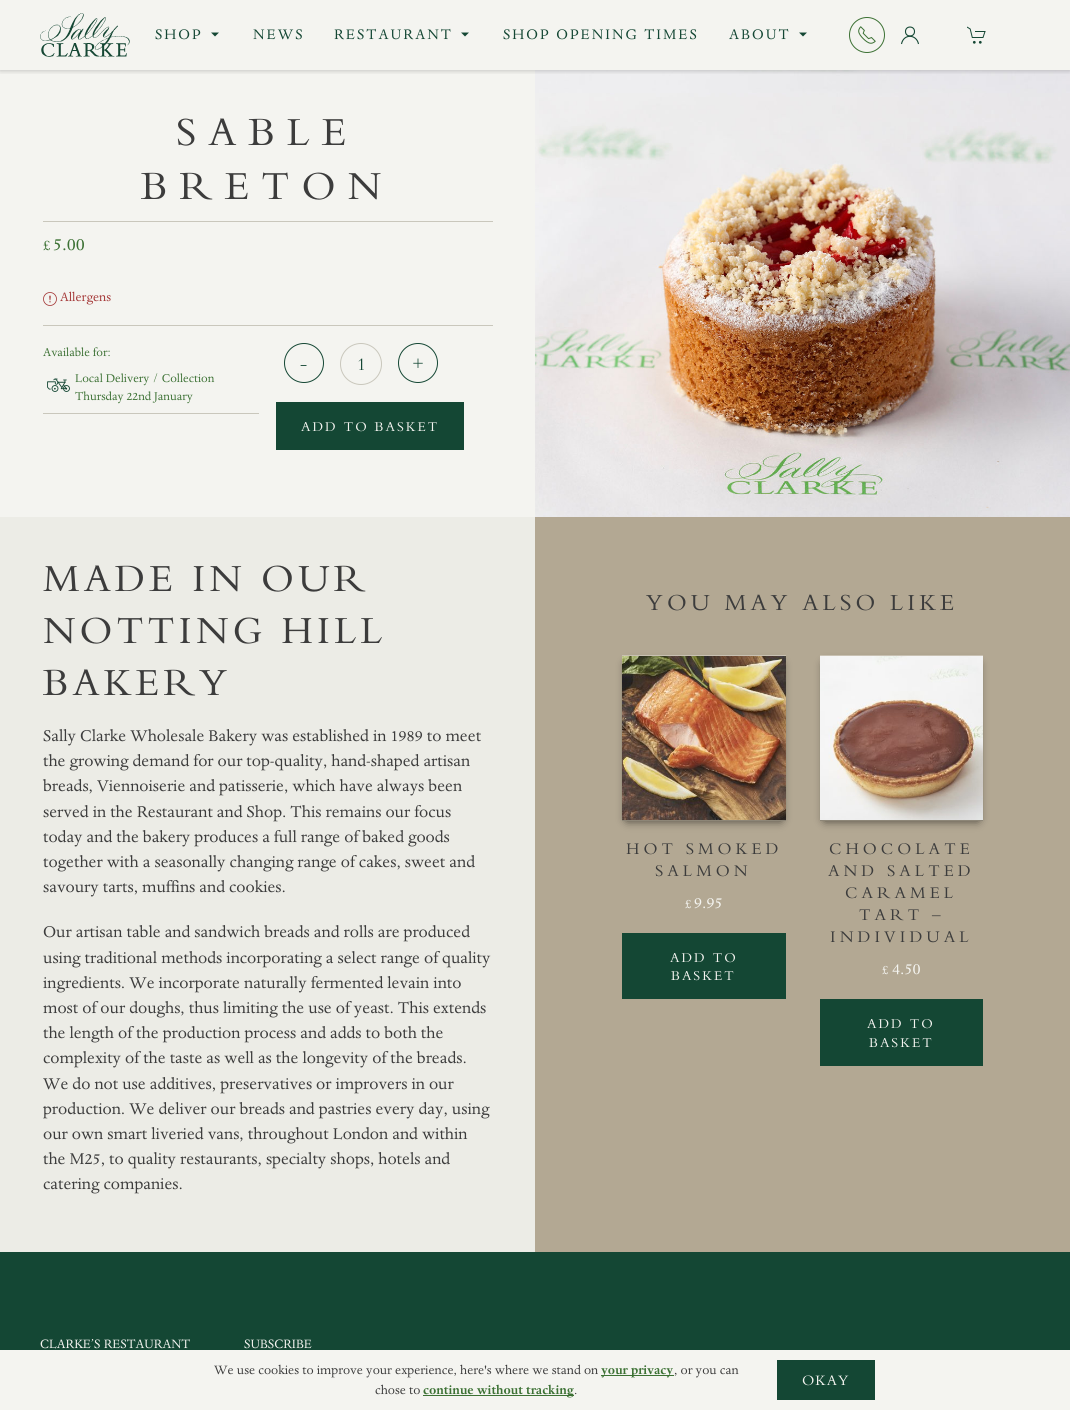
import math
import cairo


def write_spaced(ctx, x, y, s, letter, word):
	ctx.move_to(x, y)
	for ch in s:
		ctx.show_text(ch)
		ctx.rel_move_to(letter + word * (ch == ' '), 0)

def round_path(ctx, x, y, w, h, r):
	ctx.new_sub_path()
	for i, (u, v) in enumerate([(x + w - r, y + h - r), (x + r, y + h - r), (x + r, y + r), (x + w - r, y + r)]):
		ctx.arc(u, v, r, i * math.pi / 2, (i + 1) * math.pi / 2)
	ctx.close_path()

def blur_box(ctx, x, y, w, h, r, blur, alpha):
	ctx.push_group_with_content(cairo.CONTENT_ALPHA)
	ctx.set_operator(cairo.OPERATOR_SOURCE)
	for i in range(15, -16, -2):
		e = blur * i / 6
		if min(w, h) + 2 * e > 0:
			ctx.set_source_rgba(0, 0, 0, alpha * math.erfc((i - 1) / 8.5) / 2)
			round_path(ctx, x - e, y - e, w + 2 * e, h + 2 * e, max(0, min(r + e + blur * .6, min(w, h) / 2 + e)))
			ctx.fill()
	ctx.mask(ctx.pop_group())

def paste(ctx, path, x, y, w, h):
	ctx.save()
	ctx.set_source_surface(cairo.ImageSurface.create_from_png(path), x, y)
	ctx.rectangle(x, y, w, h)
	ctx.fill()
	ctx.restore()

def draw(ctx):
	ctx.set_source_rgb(0.957, 0.957, 0.941)
	ctx.paint()
	paste(ctx, 'media/6.png', 535, 70, 535, 447)
	ctx.save()
	ctx.rectangle(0, 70, 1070, 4)
	ctx.clip()
	ctx.set_source_rgb(0, 0, 0)
	blur_box(ctx, 0, 1, 1070, 70, 0, 2.5, 0.2)
	ctx.restore()
	paste(ctx, 'media/1.png', 40, 13, 90, 44)
	ctx.select_font_face('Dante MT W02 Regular')
	ctx.set_font_size(16)
	ctx.set_source_rgb(0.082, 0.278, 0.204)
	write_spaced(ctx, 155, 39, 'SHOP', 2, 0)
	ctx.new_path()
	ctx.move_to(211, 32.5)
	ctx.line_to(219, 32.5)
	ctx.line_to(215, 36.5)
	ctx.close_path()
	ctx.fill()
	write_spaced(ctx, 253, 39, 'NEWS', 2, 0)
	write_spaced(ctx, 334, 39, 'RESTAURANT', 2, 0)
	ctx.new_path()
	ctx.move_to(461, 32.5)
	ctx.line_to(469, 32.5)
	ctx.line_to(465, 36.5)
	ctx.close_path()
	ctx.fill()
	write_spaced(ctx, 503, 39, 'SHOP OPENING TIMES', 2, 0)
	write_spaced(ctx, 729, 39, 'ABOUT', 2, 0)
	ctx.new_path()
	ctx.move_to(799, 32.5)
	ctx.line_to(807, 32.5)
	ctx.line_to(803, 36.5)
	ctx.close_path()
	ctx.fill()
	ctx.arc(867, 35, 17.5, 0, 2 * math.pi)
	ctx.set_source_rgb(0.235, 0.443, 0.204)
	ctx.set_line_width(1)
	ctx.stroke()
	paste(ctx, 'media/2.png', 858, 26, 18, 18)
	ctx.arc(910, 31.5, 4.5, 0, 2 * math.pi)
	ctx.set_source_rgb(0.082, 0.278, 0.204)
	ctx.set_line_width(1.1)
	ctx.stroke()
	ctx.new_path()
	ctx.move_to(901.5, 44)
	ctx.curve_to(903.5, 33.5, 916.5, 34, 918.5, 44)
	ctx.stroke()
	paste(ctx, 'media/3.png', 967, 26, 19, 18)
	ctx.select_font_face('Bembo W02')
	ctx.set_font_size(41.5)
	ctx.set_source_rgb(0.235, 0.235, 0.235)
	write_spaced(ctx, 176, 145, 'SABLE', 12, 0)
	write_spaced(ctx, 141, 199, 'BRETON', 12, 0)
	ctx.set_source_rgb(0.788, 0.78, 0.737)
	ctx.rectangle(43, 221, 450, 1)
	ctx.fill()
	ctx.select_font_face('Dante MT W02 Regular')
	ctx.set_font_size(16)
	ctx.set_source_rgb(0.235, 0.443, 0.204)
	ctx.move_to(43, 250)
	ctx.show_text('£')
	ctx.set_font_size(20)
	ctx.move_to(53, 250)
	ctx.show_text('5.00')
	paste(ctx, 'media/4.png', 43, 292, 14, 14)
	ctx.set_font_size(14)
	ctx.set_source_rgb(0.643, 0.216, 0.216)
	ctx.move_to(60, 301)
	ctx.show_text('Allergens')
	ctx.set_source_rgb(0.788, 0.78, 0.737)
	ctx.rectangle(43, 325, 450, 1)
	ctx.fill()
	ctx.set_font_size(13)
	ctx.set_source_rgb(0.235, 0.443, 0.204)
	ctx.move_to(43, 356)
	ctx.show_text('Available for:')
	ctx.set_source_rgb(0.788, 0.78, 0.737)
	ctx.rectangle(43, 413, 216, 1)
	ctx.fill()
	paste(ctx, 'media/5.png', 47, 378, 23, 14)
	ctx.set_source_rgb(0.235, 0.443, 0.204)
	ctx.move_to(75, 382)
	ctx.show_text('Local Delivery / Collection')
	ctx.move_to(75, 400)
	ctx.show_text('Thursday 22nd January')
	ctx.new_path()
	ctx.arc(304, 363, 19.5, 0, 2 * math.pi)
	ctx.set_source_rgb(0.082, 0.278, 0.204)
	ctx.set_line_width(1)
	ctx.stroke()
	ctx.select_font_face('Bembo W02')
	ctx.set_font_size(18)
	ctx.move_to(300, 369)
	ctx.show_text('-')
	ctx.new_path()
	ctx.arc(361, 364, 20.5, 0, 2 * math.pi)
	ctx.set_source_rgb(0.788, 0.78, 0.737)
	ctx.stroke()
	ctx.set_source_rgb(0.082, 0.278, 0.204)
	ctx.move_to(357, 370)
	ctx.show_text('1')
	ctx.new_path()
	ctx.arc(418, 363, 19.5, 0, 2 * math.pi)
	ctx.stroke()
	ctx.move_to(412, 369)
	ctx.show_text('+')
	ctx.rectangle(276, 402, 188, 48)
	ctx.fill()
	ctx.set_font_size(14)
	ctx.set_source_rgb(0.957, 0.957, 0.941)
	write_spaced(ctx, 301, 431, 'ADD TO BASKET', 2, 0)
	ctx.set_source_rgb(0.925, 0.925, 0.902)
	ctx.rectangle(0, 517, 535, 735)
	ctx.fill()
	ctx.set_font_size(40)
	ctx.set_source_rgb(0.235, 0.235, 0.235)
	for x, y, s in [
		(43, 591, 'MADE IN OUR'),
		(43, 643, 'NOTTING HILL'),
		(43, 695, 'BAKERY'),
	]:
		write_spaced(ctx, x, y, s, 4, 0)
	ctx.select_font_face('Dante MT W02 Regular')
	ctx.set_font_size(18)
	for x, y, s in [
		(43, 741, 'Sally Clarke Wholesale Bakery was established in 1989 to meet'),
		(43, 766, 'the growing demand for our top-quality, hand-shaped artisan'),
		(43, 791, 'breads, Viennoiserie and patisserie, which have always been'),
		(43, 817, 'served in the Restaurant and Shop. This remains our focus'),
		(43, 842, 'today and the bakery produces a full range of baked goods'),
		(43, 867, 'together with a seasonally changing range of cakes, sweet and'),
		(43, 892, 'savoury tarts, muffins and cookies.'),
		(43, 937, 'Our artisan table and sandwich breads and rolls are produced'),
		(43, 963, 'using traditional methods incorporating a select range of quality'),
		(43, 988, 'ingredients. We incorporate naturally fermented levain into'),
		(43, 1013, 'most of our doughs, thus limiting the use of yeast. This extends'),
		(43, 1038, 'the length of the production process and adds to both the'),
		(43, 1063, 'complexity of the taste as well as the longevity of the breads.'),
		(43, 1089, 'We do not use additives, preservatives or improvers in our'),
		(43, 1114, 'production. We deliver our breads and pastries every day, using'),
		(43, 1139, 'our own smart liveried vans, throughout London and within'),
		(43, 1164, 'the M25, to quality restaurants, specialty shops, hotels and'),
		(43, 1189, 'catering companies.'),
	]:
		ctx.move_to(x, y)
		ctx.show_text(s)
	ctx.set_source_rgb(0.702, 0.659, 0.576)
	ctx.rectangle(535, 517, 535, 735)
	ctx.fill()
	ctx.select_font_face('Bembo W02')
	ctx.set_font_size(24)
	ctx.set_source_rgb(0.235, 0.235, 0.235)
	write_spaced(ctx, 646, 610, 'YOU MAY ALSO LIKE', 4, 0)
	ctx.set_source_rgb(0, 0, 0)
	blur_box(ctx, 627, 664, 154, 156, 0, 5, 0.75)
	ctx.set_source_rgb(0.788, 0.757, 0.698)
	ctx.rectangle(622, 655, 164, 1)
	ctx.fill()
	paste(ctx, 'media/7.png', 622, 656, 164, 164)
	ctx.set_source_rgb(0.553, 0.525, 0.467)
	ctx.rectangle(622, 820, 164, 1)
	ctx.fill()
	ctx.set_font_size(17)
	ctx.set_source_rgb(0.235, 0.235, 0.235)
	write_spaced(ctx, 626, 854, 'HOT SMOKED', 4, 0)
	write_spaced(ctx, 655, 876, 'SALMON', 4, 0)
	ctx.select_font_face('Dante MT W02 Regular')
	ctx.set_font_size(14)
	ctx.set_source_rgb(0.957, 0.957, 0.941)
	ctx.move_to(685, 908)
	ctx.show_text('£')
	ctx.set_font_size(18)
	ctx.move_to(694, 908)
	ctx.show_text('9.95')
	ctx.set_source_rgb(0.082, 0.278, 0.204)
	ctx.rectangle(622, 933, 164, 66)
	ctx.fill()
	ctx.select_font_face('Bembo W02')
	ctx.set_font_size(14)
	ctx.set_source_rgb(0.957, 0.957, 0.941)
	write_spaced(ctx, 670, 962, 'ADD TO', 2, 0)
	write_spaced(ctx, 671, 980, 'BASKET', 2, 0)
	ctx.set_source_rgb(0, 0, 0)
	blur_box(ctx, 825, 664, 153, 156, 0, 5, 0.75)
	ctx.set_source_rgb(0.788, 0.757, 0.698)
	ctx.rectangle(820, 655, 163, 1)
	ctx.fill()
	paste(ctx, 'media/8.png', 820, 656, 163, 164)
	ctx.set_source_rgb(0.553, 0.525, 0.467)
	ctx.rectangle(820, 820, 163, 1)
	ctx.fill()
	ctx.set_font_size(17)
	ctx.set_source_rgb(0.235, 0.235, 0.235)
	for x, y, s in [
		(829, 854, 'CHOCOLATE'),
		(828, 876, 'AND SALTED'),
		(845, 898, 'CARAMEL'),
		(859, 920, 'TART –'),
		(830, 942, 'INDIVIDUAL'),
	]:
		write_spaced(ctx, x, y, s, 4, 0)
	ctx.select_font_face('Dante MT W02 Regular')
	ctx.set_font_size(14)
	ctx.set_source_rgb(0.957, 0.957, 0.941)
	ctx.move_to(882, 974)
	ctx.show_text('£')
	ctx.set_font_size(18)
	ctx.move_to(892, 974)
	ctx.show_text('4.50')
	ctx.set_source_rgb(0.082, 0.278, 0.204)
	ctx.rectangle(820, 999, 163, 67)
	ctx.fill()
	ctx.select_font_face('Bembo W02')
	ctx.set_font_size(14)
	ctx.set_source_rgb(0.957, 0.957, 0.941)
	write_spaced(ctx, 867, 1028, 'ADD TO', 2, 0)
	write_spaced(ctx, 869, 1047, 'BASKET', 2, 0)
	ctx.set_source_rgb(0.082, 0.278, 0.204)
	ctx.rectangle(0, 1252, 1070, 98)
	ctx.fill()
	ctx.select_font_face('Dante MT W02 Regular')
	ctx.set_source_rgb(0.957, 0.957, 0.941)
	ctx.move_to(40, 1348)
	ctx.show_text('CLARKE’S RESTAURANT')
	ctx.move_to(244, 1348)
	ctx.show_text('SUBSCRIBE')
	ctx.set_source_rgb(0.235, 0.235, 0.235)
	ctx.move_to(214, 1374)
	ctx.show_text('We use cookies to improve your experience, here\'s where we stand on')
	ctx.set_source_rgb(0.235, 0.443, 0.204)
	ctx.rectangle(601, 1375, 73, 1)
	ctx.fill()
	ctx.select_font_face('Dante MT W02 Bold', cairo.FONT_SLANT_NORMAL, cairo.FONT_WEIGHT_BOLD)
	ctx.move_to(601, 1374)
	ctx.show_text('your privacy')
	ctx.select_font_face('Dante MT W02 Regular')
	ctx.set_source_rgb(0.235, 0.235, 0.235)
	ctx.move_to(674, 1374)
	ctx.show_text(', or you can')
	ctx.move_to(375, 1394)
	ctx.show_text('chose to')
	ctx.set_source_rgb(0.235, 0.443, 0.204)
	ctx.rectangle(423, 1395, 151, 1)
	ctx.fill()
	ctx.select_font_face('Dante MT W02 Bold', cairo.FONT_SLANT_NORMAL, cairo.FONT_WEIGHT_BOLD)
	ctx.move_to(423, 1394)
	ctx.show_text('continue without tracking')
	ctx.select_font_face('Dante MT W02 Regular')
	ctx.set_source_rgb(0.235, 0.235, 0.235)
	ctx.move_to(574, 1394)
	ctx.show_text('.')
	ctx.set_source_rgb(0.082, 0.278, 0.204)
	ctx.rectangle(777, 1360, 98, 40)
	ctx.fill()
	ctx.select_font_face('Bembo W02')
	ctx.set_font_size(15)
	ctx.set_source_rgb(0.957, 0.957, 0.941)
	write_spaced(ctx, 802, 1385, 'OKAY', 1, 0)


surface = cairo.ImageSurface(cairo.FORMAT_RGB24, 1070, 1410)
ctx = cairo.Context(surface)
options = cairo.FontOptions()
options.set_hint_metrics(cairo.HINT_METRICS_OFF)
options.set_hint_style(cairo.HINT_STYLE_NONE)
ctx.set_font_options(options)
ctx.set_miter_limit(4)
draw(ctx)
surface.write_to_png('image.png')
